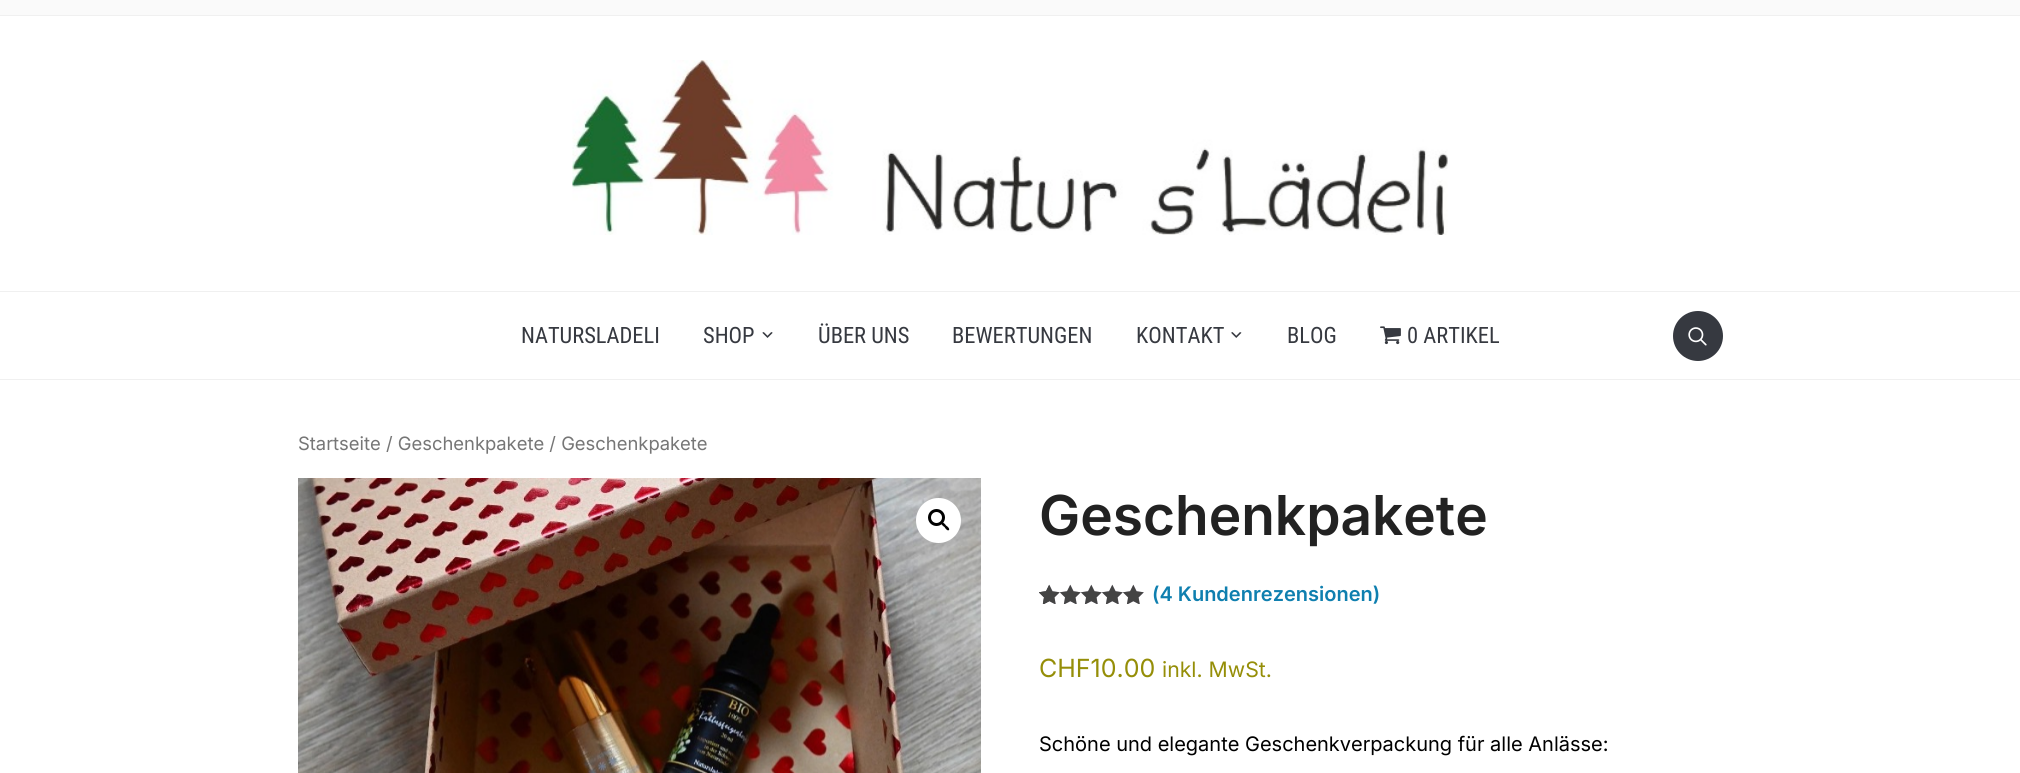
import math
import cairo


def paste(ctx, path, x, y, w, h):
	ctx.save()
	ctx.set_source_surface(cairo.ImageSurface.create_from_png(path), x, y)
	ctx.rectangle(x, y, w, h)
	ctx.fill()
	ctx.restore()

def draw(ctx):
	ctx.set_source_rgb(1, 1, 1)
	ctx.paint()
	ctx.set_source_rgb(0.98, 0.98, 0.98)
	ctx.rectangle(0, 0, 2020, 15)
	ctx.fill()
	ctx.set_source_rgb(0.941, 0.941, 0.941)
	ctx.rectangle(0, 15, 2020, 1)
	ctx.fill()
	paste(ctx, 'media/1.png', 572, 60, 876, 175)
	ctx.rectangle(0, 291, 2020, 1)
	ctx.fill()
	ctx.rectangle(0, 379, 2020, 1)
	ctx.fill()
	ctx.select_font_face('Roboto Condensed')
	ctx.set_font_size(22.5)
	ctx.set_source_rgb(0.212, 0.224, 0.251)
	ctx.move_to(521, 343)
	ctx.show_text('NATURSLADELI')
	ctx.move_to(703, 343)
	ctx.show_text('SHOP')
	paste(ctx, 'media/2.png', 762, 332, 11, 6)
	for x, y, s in [
		(818, 343, 'ÜBER UNS'),
		(952, 343, 'BEWERTUNGEN'),
		(1136, 343, 'KONTAKT'),
	]:
		ctx.move_to(x, y)
		ctx.show_text(s)
	paste(ctx, 'media/3.png', 1231, 332, 11, 6)
	ctx.move_to(1287, 343)
	ctx.show_text('BLOG')
	paste(ctx, 'media/4.png', 1380, 326, 21, 19)
	ctx.move_to(1407, 343)
	ctx.show_text('0 ARTIKEL')
	ctx.new_path()
	ctx.arc(1698, 336, 25, 0, 2 * math.pi)
	ctx.fill()
	paste(ctx, 'media/5.png', 1688, 327, 19, 19)
	ctx.select_font_face('Inter')
	ctx.set_font_size(18.4)
	ctx.set_source_rgb(0.463, 0.463, 0.463)
	ctx.move_to(298, 450)
	ctx.show_text('Startseite / Geschenkpakete / Geschenkpakete')
	paste(ctx, 'media/6.png', 298, 478, 683, 295)
	ctx.set_source_rgb(1, 1, 1)
	ctx.arc(938.5, 520.5, 22.5, 0, 2 * math.pi)
	ctx.fill()
	ctx.arc(936.5, 517.5, 7, 0, 2 * math.pi)
	ctx.set_source_rgb(0, 0, 0)
	ctx.set_line_width(3)
	ctx.stroke()
	ctx.new_path()
	ctx.move_to(941.5, 523)
	ctx.curve_to(943, 521.5, 945.5, 524.5, 946, 525.5)
	ctx.curve_to(947, 526, 950, 528.5, 949, 530)
	ctx.curve_to(947.5, 531.5, 945, 528, 944.5, 527)
	ctx.curve_to(943.5, 526.5, 940.5, 524, 941.5, 523)
	ctx.close_path()
	ctx.fill()
	ctx.select_font_face('Inter SemiBold')
	ctx.set_font_size(55)
	ctx.set_source_rgb(0.133, 0.133, 0.133)
	ctx.move_to(1039, 535)
	ctx.show_text('Geschenkpakete')
	paste(ctx, 'media/9.png', 1039, 585, 105, 19)
	paste(ctx, 'media/7.png', 1039, 584, 105, 20)
	paste(ctx, 'media/8.png', 1039, 585, 10, 19)
	ctx.set_font_size(20)
	ctx.set_source_rgb(0.059, 0.498, 0.686)
	ctx.move_to(1152, 601)
	ctx.show_text('(4 Kundenrezensionen)')
	ctx.select_font_face('Inter')
	ctx.set_font_size(25)
	ctx.set_source_rgb(0.584, 0.557, 0.035)
	ctx.move_to(1039, 677)
	ctx.show_text('CHF10.00')
	ctx.set_font_size(21.25)
	ctx.move_to(1162, 677)
	ctx.show_text('inkl. MwSt.')
	ctx.set_font_size(20)
	ctx.set_source_rgb(0, 0, 0)
	ctx.move_to(1039, 751)
	ctx.show_text('Schöne und elegante Geschenkverpackung für alle Anlässe:')


surface = cairo.ImageSurface(cairo.FORMAT_RGB24, 2020, 773)
ctx = cairo.Context(surface)
options = cairo.FontOptions()
options.set_hint_metrics(cairo.HINT_METRICS_OFF)
options.set_hint_style(cairo.HINT_STYLE_NONE)
ctx.set_font_options(options)
ctx.set_miter_limit(4)
draw(ctx)
surface.write_to_png('image.png')
